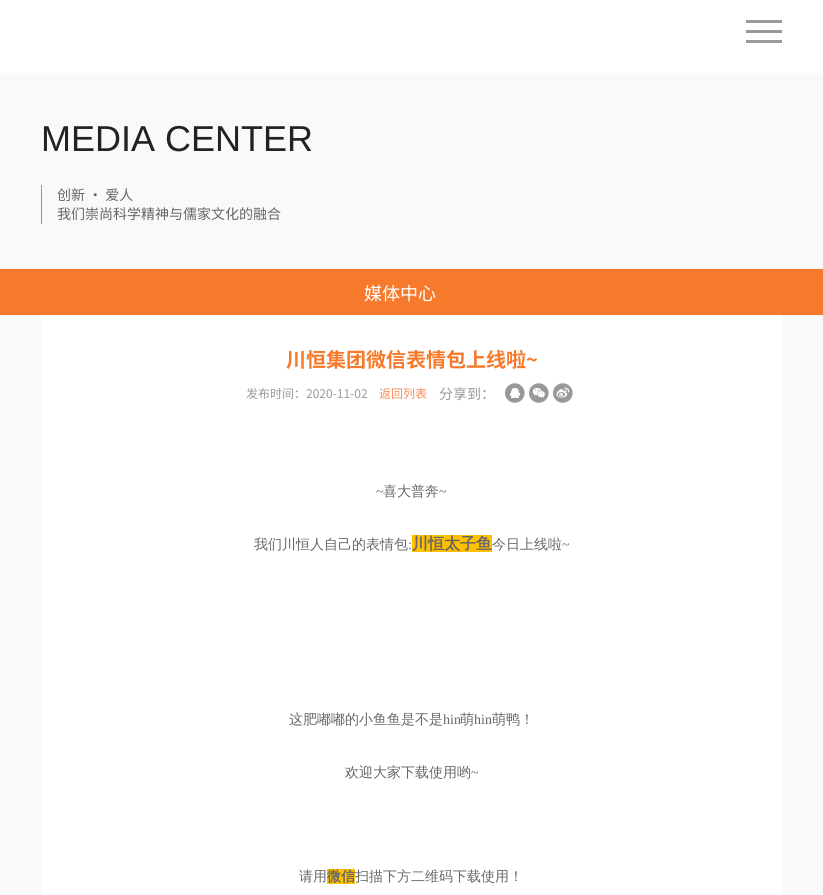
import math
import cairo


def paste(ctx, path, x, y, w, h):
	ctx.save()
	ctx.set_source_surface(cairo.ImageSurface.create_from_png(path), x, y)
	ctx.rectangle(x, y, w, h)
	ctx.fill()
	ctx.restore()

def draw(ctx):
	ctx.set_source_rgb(1, 1, 1)
	ctx.paint()
	ctx.set_source_rgb(0.6, 0.6, 0.6)
	ctx.rectangle(746, 30, 36, 3)
	ctx.rectangle(746, 20, 36, 3)
	ctx.rectangle(746, 40, 36, 3)
	ctx.fill()
	ctx.set_source_rgb(0.973, 0.973, 0.973)
	ctx.rectangle(0, 73, 823, 196)
	ctx.fill()
	ctx.select_font_face('Liberation Sans')
	ctx.set_font_size(36)
	ctx.set_source_rgb(0.133, 0.133, 0.133)
	ctx.move_to(41, 151)
	ctx.show_text('MEDIA CENTER')
	ctx.set_source_rgb(0.965, 0.475, 0.169)
	ctx.rectangle(41, 185, 1, 39)
	ctx.fill()
	ctx.select_font_face('Noto Sans SC')
	ctx.set_font_size(14)
	ctx.set_source_rgb(0.4, 0.4, 0.4)
	ctx.move_to(57, 200)
	ctx.show_text('创新 · 爱人')
	ctx.move_to(57, 219)
	ctx.show_text('我们崇尚科学精神与儒家文化的融合')
	ctx.set_source_rgb(0.965, 0.475, 0.169)
	ctx.rectangle(0, 269, 823, 46)
	ctx.fill()
	ctx.set_font_size(18)
	ctx.set_source_rgb(1, 1, 1)
	ctx.move_to(364, 300)
	ctx.show_text('媒体中心')
	ctx.set_source_rgb(0.973, 0.973, 0.973)
	ctx.rectangle(0, 315, 823, 580)
	ctx.fill()
	ctx.set_source_rgb(1, 1, 1)
	ctx.rectangle(41, 315, 741, 580)
	ctx.fill()
	ctx.select_font_face('Noto Sans SC', cairo.FONT_SLANT_NORMAL, cairo.FONT_WEIGHT_BOLD)
	ctx.set_font_size(20)
	ctx.set_source_rgb(0.965, 0.475, 0.169)
	ctx.move_to(286, 367)
	ctx.show_text('川恒集团微信表情包上线啦~')
	ctx.select_font_face('Noto Sans SC')
	ctx.set_font_size(12)
	ctx.set_source_rgb(0.6, 0.6, 0.6)
	ctx.move_to(246, 398)
	ctx.show_text('发布时间：2020-11-02')
	ctx.set_source_rgb(0.965, 0.557, 0.337)
	ctx.move_to(379, 398)
	ctx.show_text('返回列表')
	ctx.set_font_size(14)
	ctx.set_source_rgb(0.6, 0.6, 0.6)
	ctx.move_to(439, 399)
	ctx.show_text('分享到：')
	paste(ctx, 'media/1.png', 505, 383, 20, 20)
	paste(ctx, 'media/2.png', 529, 383, 20, 20)
	paste(ctx, 'media/3.png', 553, 383, 20, 20)
	ctx.select_font_face('Liberation Serif')
	ctx.set_source_rgb(0.4, 0.4, 0.4)
	ctx.move_to(376, 496)
	ctx.show_text('~')
	ctx.select_font_face('WenQuanYi Zen Hei Medium')
	ctx.move_to(383, 496)
	ctx.show_text('喜大普奔')
	ctx.select_font_face('Liberation Serif')
	ctx.move_to(439, 496)
	ctx.show_text('~')
	ctx.select_font_face('WenQuanYi Zen Hei Medium')
	ctx.move_to(254, 549)
	ctx.show_text('我们川恒人自己的表情包')
	ctx.select_font_face('Liberation Serif')
	ctx.move_to(408, 549)
	ctx.show_text(':')
	ctx.set_source_rgb(1, 0.753, 0)
	ctx.rectangle(412, 535, 80, 17)
	ctx.fill()
	ctx.select_font_face('WenQuanYi Zen Hei', cairo.FONT_SLANT_NORMAL, cairo.FONT_WEIGHT_BOLD)
	ctx.set_font_size(16)
	ctx.set_source_rgb(0.4, 0.4, 0.4)
	ctx.move_to(412, 549)
	ctx.show_text('川恒太子鱼')
	ctx.select_font_face('WenQuanYi Zen Hei Medium')
	ctx.set_font_size(14)
	ctx.move_to(492, 549)
	ctx.show_text('今日上线啦')
	ctx.select_font_face('Liberation Serif')
	ctx.move_to(562, 549)
	ctx.show_text('~')
	ctx.select_font_face('WenQuanYi Zen Hei Medium')
	ctx.move_to(289, 724)
	ctx.show_text('这肥嘟嘟的小鱼鱼是不是')
	ctx.select_font_face('Liberation Serif')
	ctx.move_to(443, 724)
	ctx.show_text('hin')
	ctx.select_font_face('WenQuanYi Zen Hei Medium')
	ctx.move_to(460, 724)
	ctx.show_text('萌')
	ctx.select_font_face('Liberation Serif')
	ctx.move_to(474, 724)
	ctx.show_text('hin')
	ctx.select_font_face('WenQuanYi Zen Hei Medium')
	ctx.move_to(492, 724)
	ctx.show_text('萌鸭！')
	ctx.move_to(345, 777)
	ctx.show_text('欢迎大家下载使用哟')
	ctx.select_font_face('Liberation Serif')
	ctx.move_to(471, 777)
	ctx.show_text('~')
	ctx.select_font_face('WenQuanYi Zen Hei Medium')
	ctx.move_to(299, 881)
	ctx.show_text('请用')
	ctx.set_source_rgb(1, 0.753, 0)
	ctx.rectangle(327, 869, 28, 15)
	ctx.fill()
	ctx.select_font_face('WenQuanYi Zen Hei', cairo.FONT_SLANT_NORMAL, cairo.FONT_WEIGHT_BOLD)
	ctx.set_source_rgb(0.4, 0.4, 0.4)
	ctx.move_to(327, 881)
	ctx.show_text('微信')
	ctx.select_font_face('WenQuanYi Zen Hei Medium')
	ctx.move_to(355, 881)
	ctx.show_text('扫描下方二维码下载使用！')


surface = cairo.ImageSurface(cairo.FORMAT_RGB24, 823, 895)
ctx = cairo.Context(surface)
options = cairo.FontOptions()
options.set_hint_metrics(cairo.HINT_METRICS_OFF)
options.set_hint_style(cairo.HINT_STYLE_NONE)
ctx.set_font_options(options)
ctx.set_miter_limit(4)
draw(ctx)
surface.write_to_png('image.png')
